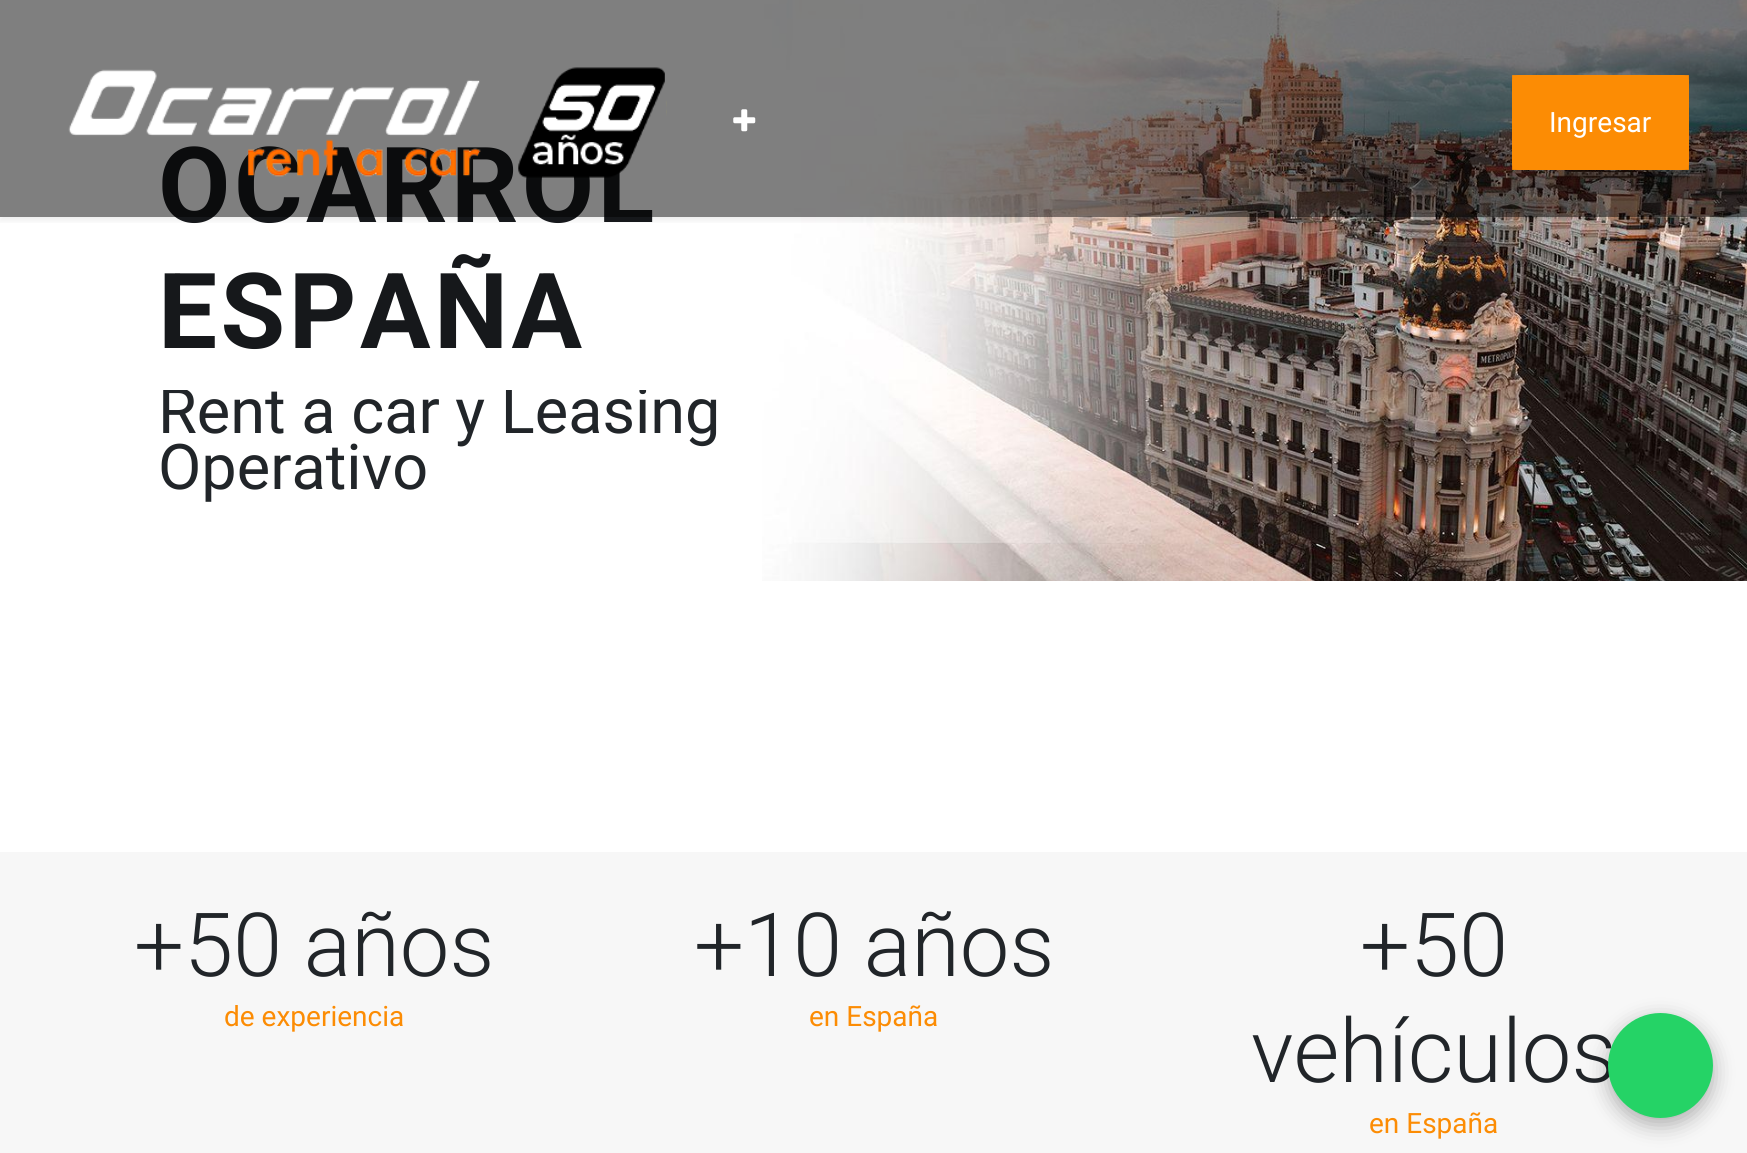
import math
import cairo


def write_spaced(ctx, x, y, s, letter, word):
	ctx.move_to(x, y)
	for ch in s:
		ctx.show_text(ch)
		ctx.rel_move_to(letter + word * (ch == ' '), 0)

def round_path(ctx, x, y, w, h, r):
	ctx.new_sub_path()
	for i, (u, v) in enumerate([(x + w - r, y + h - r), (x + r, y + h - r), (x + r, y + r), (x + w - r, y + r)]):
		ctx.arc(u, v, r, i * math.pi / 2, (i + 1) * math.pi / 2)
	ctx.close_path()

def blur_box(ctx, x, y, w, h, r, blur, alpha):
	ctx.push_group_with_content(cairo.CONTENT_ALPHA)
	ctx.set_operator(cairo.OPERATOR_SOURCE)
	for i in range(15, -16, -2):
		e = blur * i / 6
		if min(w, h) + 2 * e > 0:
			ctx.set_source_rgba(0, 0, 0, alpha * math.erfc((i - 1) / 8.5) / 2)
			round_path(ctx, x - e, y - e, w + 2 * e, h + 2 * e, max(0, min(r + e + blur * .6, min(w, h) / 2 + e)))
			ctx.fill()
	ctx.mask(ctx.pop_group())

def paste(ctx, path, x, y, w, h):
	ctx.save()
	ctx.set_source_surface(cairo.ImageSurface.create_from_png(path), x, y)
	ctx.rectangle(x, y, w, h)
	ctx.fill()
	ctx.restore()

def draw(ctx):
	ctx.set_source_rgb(1, 1, 1)
	ctx.paint()
	paste(ctx, 'media/3.png', 762, 0, 985, 581)
	ctx.save()
	ctx.rectangle(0, 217, 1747, 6)
	ctx.clip()
	ctx.set_source_rgb(0, 0, 0)
	blur_box(ctx, 0, 32, 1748, 189, 0, 3.5, 0.07)
	ctx.restore()
	ctx.set_source_rgba(0, 0, 0, 0.5)
	ctx.rectangle(0, 0, 1747, 28)
	ctx.fill()
	ctx.select_font_face('Roboto', cairo.FONT_SLANT_NORMAL, cairo.FONT_WEIGHT_BOLD)
	ctx.set_font_size(105)
	ctx.set_source_rgb(0.086, 0.094, 0.106)
	write_spaced(ctx, 158, 222, 'OCARROL', 3.5, 0)
	ctx.set_source_rgba(0, 0, 0, 0.5)
	ctx.rectangle(0, 28, 1747, 189)
	ctx.fill()
	paste(ctx, 'media/1.png', 68, 67, 599, 111)
	paste(ctx, 'media/2.png', 733, 109, 23, 23)
	ctx.set_source_rgb(0.988, 0.549, 0.016)
	round_path(ctx, 1512, 75, 177, 95, 7)
	ctx.fill()
	ctx.new_path()
	ctx.move_to(1520, 83)
	ctx.line_to(1681, 83)
	ctx.line_to(1681, 162)
	ctx.line_to(1520, 162)
	ctx.close_path()
	ctx.set_line_width(15.8)
	ctx.stroke()
	ctx.select_font_face('Roboto')
	ctx.set_font_size(28)
	ctx.set_source_rgb(1, 1, 1)
	ctx.move_to(1549, 132)
	ctx.show_text('Ingresar')
	ctx.select_font_face('Roboto', cairo.FONT_SLANT_NORMAL, cairo.FONT_WEIGHT_BOLD)
	ctx.set_font_size(105)
	ctx.set_source_rgb(0.086, 0.094, 0.106)
	write_spaced(ctx, 158, 348, 'ESPAÑA', 3.5, 0)
	ctx.save()
	ctx.rectangle(158, 390, 840, 112)
	ctx.clip()
	ctx.select_font_face('Roboto')
	ctx.set_font_size(63)
	ctx.set_source_rgb(0.129, 0.145, 0.161)
	ctx.move_to(158, 433)
	ctx.show_text('Rent a car y Leasing')
	ctx.restore()
	ctx.select_font_face('Roboto')
	ctx.set_font_size(63)
	ctx.set_source_rgb(0.129, 0.145, 0.161)
	ctx.move_to(158, 489)
	ctx.show_text('Operativo')
	ctx.set_source_rgb(0.965, 0.965, 0.965)
	ctx.rectangle(0, 852, 1747, 301)
	ctx.fill()
	ctx.select_font_face('Roboto Light')
	ctx.set_font_size(88.5)
	ctx.set_source_rgb(0.129, 0.145, 0.161)
	ctx.move_to(134, 976)
	ctx.show_text('+50 años')
	ctx.select_font_face('Roboto')
	ctx.set_font_size(28)
	ctx.set_source_rgb(0.988, 0.549, 0.016)
	ctx.move_to(224, 1026)
	ctx.show_text('de experiencia')
	ctx.select_font_face('Roboto Light')
	ctx.set_font_size(88.5)
	ctx.set_source_rgb(0.129, 0.145, 0.161)
	ctx.move_to(694, 976)
	ctx.show_text('+10 años')
	ctx.select_font_face('Roboto')
	ctx.set_font_size(28)
	ctx.set_source_rgb(0.988, 0.549, 0.016)
	ctx.move_to(809, 1026)
	ctx.show_text('en España')
	ctx.select_font_face('Roboto Light')
	ctx.set_font_size(88.5)
	ctx.set_source_rgb(0.129, 0.145, 0.161)
	ctx.move_to(1360, 976)
	ctx.show_text('+50')
	ctx.move_to(1251, 1082)
	ctx.show_text('vehículos')
	ctx.select_font_face('Roboto')
	ctx.set_font_size(28)
	ctx.set_source_rgb(0.988, 0.549, 0.016)
	ctx.move_to(1369, 1133)
	ctx.show_text('en España')
	ctx.set_source_rgb(0, 0, 0)
	blur_box(ctx, 1608, 1020, 105, 105, 52.5, 10.5, 0.3)
	ctx.set_source_rgb(0.145, 0.827, 0.4)
	ctx.arc(1660.5, 1065.5, 52.5, 0, 2 * math.pi)
	ctx.fill()


surface = cairo.ImageSurface(cairo.FORMAT_RGB24, 1747, 1153)
ctx = cairo.Context(surface)
options = cairo.FontOptions()
options.set_hint_metrics(cairo.HINT_METRICS_OFF)
options.set_hint_style(cairo.HINT_STYLE_NONE)
ctx.set_font_options(options)
ctx.set_miter_limit(4)
draw(ctx)
surface.write_to_png('image.png')
